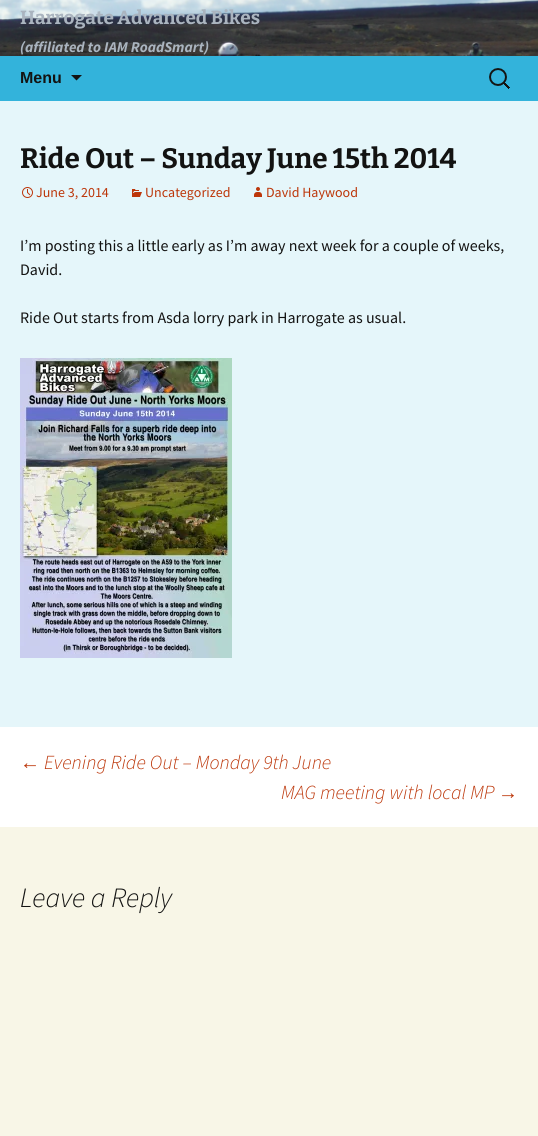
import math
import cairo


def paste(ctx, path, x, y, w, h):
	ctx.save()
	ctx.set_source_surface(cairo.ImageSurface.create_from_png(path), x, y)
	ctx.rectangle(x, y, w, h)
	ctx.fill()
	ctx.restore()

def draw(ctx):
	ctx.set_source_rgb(1, 1, 1)
	ctx.paint()
	paste(ctx, 'media/1.png', 0, 0, 538, 56)
	ctx.select_font_face('Bitter Thin')
	ctx.set_font_size(19)
	ctx.set_source_rgb(0.667, 0.706, 0.749)
	ctx.move_to(20, 24)
	ctx.show_text('Harrogate Advanced Bikes')
	ctx.select_font_face('Source Sans Pro', cairo.FONT_SLANT_ITALIC, cairo.FONT_WEIGHT_BOLD)
	ctx.set_font_size(15)
	ctx.move_to(20, 52)
	ctx.show_text('(affiliated to IAM RoadSmart)')
	ctx.set_source_rgb(0.2, 0.702, 0.859)
	ctx.rectangle(0, 56, 538, 45)
	ctx.fill()
	ctx.select_font_face('Liberation Sans', cairo.FONT_SLANT_NORMAL, cairo.FONT_WEIGHT_BOLD)
	ctx.set_font_size(16)
	ctx.set_source_rgb(0.078, 0.078, 0.071)
	ctx.move_to(20, 83)
	ctx.show_text('Menu')
	ctx.new_path()
	ctx.move_to(71, 75)
	ctx.line_to(82, 75)
	ctx.line_to(76.5, 80.5)
	ctx.close_path()
	ctx.fill()
	paste(ctx, 'media/2.png', 489, 68, 21, 21)
	ctx.set_source_rgb(0.898, 0.961, 0.98)
	ctx.rectangle(0, 101, 538, 626)
	ctx.fill()
	ctx.select_font_face('Bitter Thin')
	ctx.set_font_size(28)
	ctx.set_source_rgb(0.078, 0.078, 0.071)
	ctx.move_to(20, 168)
	ctx.show_text('Ride Out – Sunday June 15th 2014')
	paste(ctx, 'media/3.png', 22, 187, 11, 11)
	ctx.select_font_face('Source Sans Pro')
	ctx.set_font_size(14)
	ctx.set_source_rgb(0.737, 0.212, 0.039)
	ctx.move_to(36, 197)
	ctx.show_text('June 3, 2014')
	paste(ctx, 'media/4.png', 132, 189, 10, 8)
	ctx.move_to(145, 197)
	ctx.show_text('Uncategorized')
	paste(ctx, 'media/5.png', 254, 187, 8, 10)
	ctx.move_to(266, 197)
	ctx.show_text('David Haywood')
	ctx.set_font_size(16)
	ctx.set_source_rgb(0.078, 0.078, 0.071)
	for x, y, s in [
		(20, 251, 'I’m posting this a little early as I’m away next week for a couple of weeks,'),
		(20, 275, 'David.'),
		(20, 323, 'Ride Out starts from Asda lorry park in Harrogate as usual.'),
	]:
		ctx.move_to(x, y)
		ctx.show_text(s)
	paste(ctx, 'media/6.png', 20, 358, 212, 300)
	ctx.select_font_face('Liberation Sans', cairo.FONT_SLANT_ITALIC)
	ctx.set_font_size(20)
	ctx.set_source_rgb(0.737, 0.212, 0.039)
	ctx.move_to(20, 769)
	ctx.show_text('←')
	ctx.select_font_face('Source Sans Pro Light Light', cairo.FONT_SLANT_ITALIC)
	ctx.move_to(44, 769)
	ctx.show_text('Evening Ride Out – Monday 9th June')
	ctx.move_to(281, 799)
	ctx.show_text('MAG meeting with local MP')
	ctx.select_font_face('Liberation Sans', cairo.FONT_SLANT_ITALIC)
	ctx.move_to(498, 799)
	ctx.show_text('→')
	ctx.set_source_rgb(0.969, 0.961, 0.906)
	ctx.rectangle(0, 827, 538, 309)
	ctx.fill()
	ctx.select_font_face('Source Sans Pro Light Light', cairo.FONT_SLANT_ITALIC)
	ctx.set_font_size(28)
	ctx.set_source_rgb(0.078, 0.078, 0.071)
	ctx.move_to(20, 907)
	ctx.show_text('Leave a Reply')


surface = cairo.ImageSurface(cairo.FORMAT_RGB24, 538, 1136)
ctx = cairo.Context(surface)
options = cairo.FontOptions()
options.set_hint_metrics(cairo.HINT_METRICS_OFF)
options.set_hint_style(cairo.HINT_STYLE_NONE)
ctx.set_font_options(options)
ctx.set_miter_limit(4)
draw(ctx)
surface.write_to_png('image.png')
